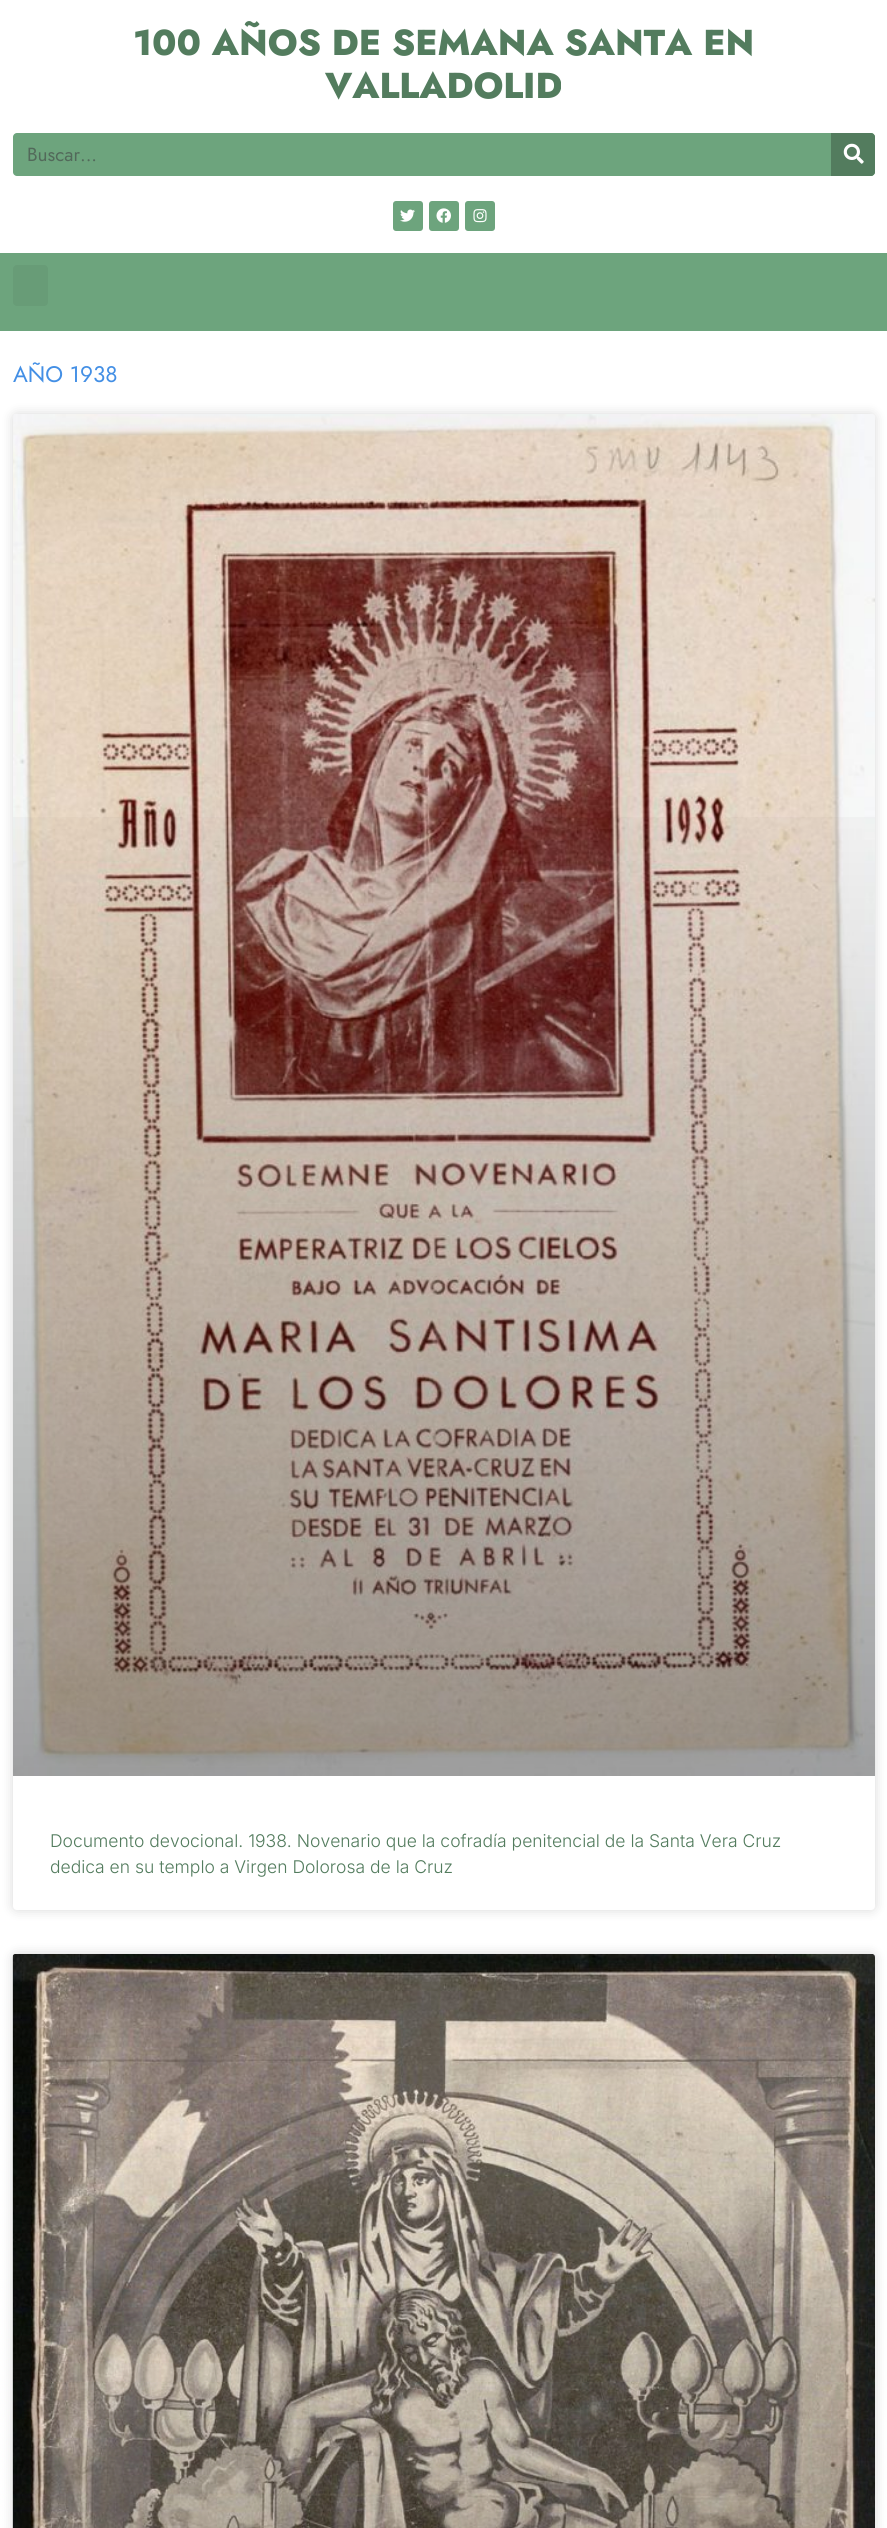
import math
import cairo


def round_path(ctx, x, y, w, h, r):
	ctx.new_sub_path()
	for i, (u, v) in enumerate([(x + w - r, y + h - r), (x + r, y + h - r), (x + r, y + r), (x + w - r, y + r)]):
		ctx.arc(u, v, r, i * math.pi / 2, (i + 1) * math.pi / 2)
	ctx.close_path()

def blur_box(ctx, x, y, w, h, r, blur, alpha):
	ctx.push_group_with_content(cairo.CONTENT_ALPHA)
	ctx.set_operator(cairo.OPERATOR_SOURCE)
	for i in range(15, -16, -2):
		e = blur * i / 6
		if min(w, h) + 2 * e > 0:
			ctx.set_source_rgba(0, 0, 0, alpha * math.erfc((i - 1) / 8.5) / 2)
			round_path(ctx, x - e, y - e, w + 2 * e, h + 2 * e, max(0, min(r + e + blur * .6, min(w, h) / 2 + e)))
			ctx.fill()
	ctx.mask(ctx.pop_group())

def paste(ctx, path, x, y, w, h):
	ctx.save()
	ctx.set_source_surface(cairo.ImageSurface.create_from_png(path), x, y)
	ctx.rectangle(x, y, w, h)
	ctx.fill()
	ctx.restore()

def draw(ctx):
	ctx.set_source_rgb(1, 1, 1)
	ctx.paint()
	ctx.select_font_face('Jost ExtraBold')
	ctx.set_font_size(36)
	ctx.set_source_rgb(0.325, 0.486, 0.369)
	ctx.move_to(133, 55)
	ctx.show_text('100 AÑOS DE SEMANA SANTA EN')
	ctx.move_to(325, 98)
	ctx.show_text('VALLADOLID')
	ctx.set_source_rgb(0.427, 0.643, 0.49)
	round_path(ctx, 13, 133, 862, 43, 4)
	ctx.fill()
	ctx.select_font_face('Jost')
	ctx.set_font_size(19)
	ctx.set_source_rgb(0.322, 0.412, 0.353)
	ctx.move_to(27, 161)
	ctx.show_text('Buscar...')
	ctx.set_source_rgb(0.325, 0.486, 0.369)
	ctx.new_path()
	ctx.move_to(831, 133)
	ctx.line_to(871, 133)
	ctx.curve_to(873, 133, 875, 135, 875, 137)
	ctx.line_to(875, 172)
	ctx.curve_to(875, 174, 873, 176, 871, 176)
	ctx.line_to(831, 176)
	ctx.close_path()
	ctx.fill()
	paste(ctx, 'media/1.png', 843, 143, 21, 21)
	ctx.set_source_rgb(0.427, 0.643, 0.49)
	round_path(ctx, 393, 201, 30, 30, 3)
	ctx.fill()
	paste(ctx, 'media/2.png', 400, 209, 15, 13)
	round_path(ctx, 429, 201, 30, 30, 3)
	ctx.fill()
	paste(ctx, 'media/3.png', 436, 208, 15, 15)
	round_path(ctx, 465, 201, 30, 30, 3)
	ctx.fill()
	paste(ctx, 'media/4.png', 473, 209, 14, 14)
	ctx.rectangle(0, 253, 887, 78)
	ctx.fill()
	ctx.set_source_rgb(0.408, 0.612, 0.467)
	round_path(ctx, 13, 265, 35, 41, 4)
	ctx.fill()
	ctx.set_font_size(22.5)
	ctx.set_source_rgb(0.263, 0.561, 0.898)
	ctx.move_to(13, 382)
	ctx.show_text('AÑO 1938')
	ctx.set_source_rgb(0, 0, 0)
	blur_box(ctx, 13, 414, 862, 1496, 4, 6, 0.15)
	ctx.set_source_rgb(1, 1, 1)
	round_path(ctx, 13, 414, 862, 1496, 4)
	ctx.fill()
	paste(ctx, 'media/5.png', 13, 414, 862, 1362)
	gradient = cairo.LinearGradient(444, 1776, 444, 414)
	gradient.add_color_stop_rgba(0, 0, 0, 0, 0.35)
	gradient.add_color_stop_rgba(0.75, 0, 0, 0, 0)
	ctx.set_source(gradient)
	ctx.rectangle(13, 817, 862, 959)
	ctx.fill()
	ctx.select_font_face('Inter Light')
	ctx.set_font_size(17.5)
	ctx.set_source_rgb(0.325, 0.486, 0.369)
	ctx.move_to(50, 1847)
	ctx.show_text('Documento devocional. 1938. Novenario que la cofradía penitencial de la Santa Vera Cruz')
	ctx.move_to(50, 1873)
	ctx.show_text('dedica en su templo a Virgen Dolorosa de la Cruz')
	ctx.set_source_rgb(0, 0, 0)
	blur_box(ctx, 13, 1954, 862, 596, 4, 6, 0.15)
	paste(ctx, 'media/6.png', 12, 1954, 863, 574)
	gradient = cairo.LinearGradient(444, 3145, 444, 1954)
	gradient.add_color_stop_rgba(0, 0, 0, 0, 0.35)
	gradient.add_color_stop_rgba(0.75, 0, 0, 0, 0)
	ctx.set_source(gradient)
	ctx.rectangle(30, 2307, 845, 221)
	ctx.fill()


surface = cairo.ImageSurface(cairo.FORMAT_RGB24, 887, 2528)
ctx = cairo.Context(surface)
options = cairo.FontOptions()
options.set_hint_metrics(cairo.HINT_METRICS_OFF)
options.set_hint_style(cairo.HINT_STYLE_NONE)
ctx.set_font_options(options)
ctx.set_miter_limit(4)
draw(ctx)
surface.write_to_png('image.png')
